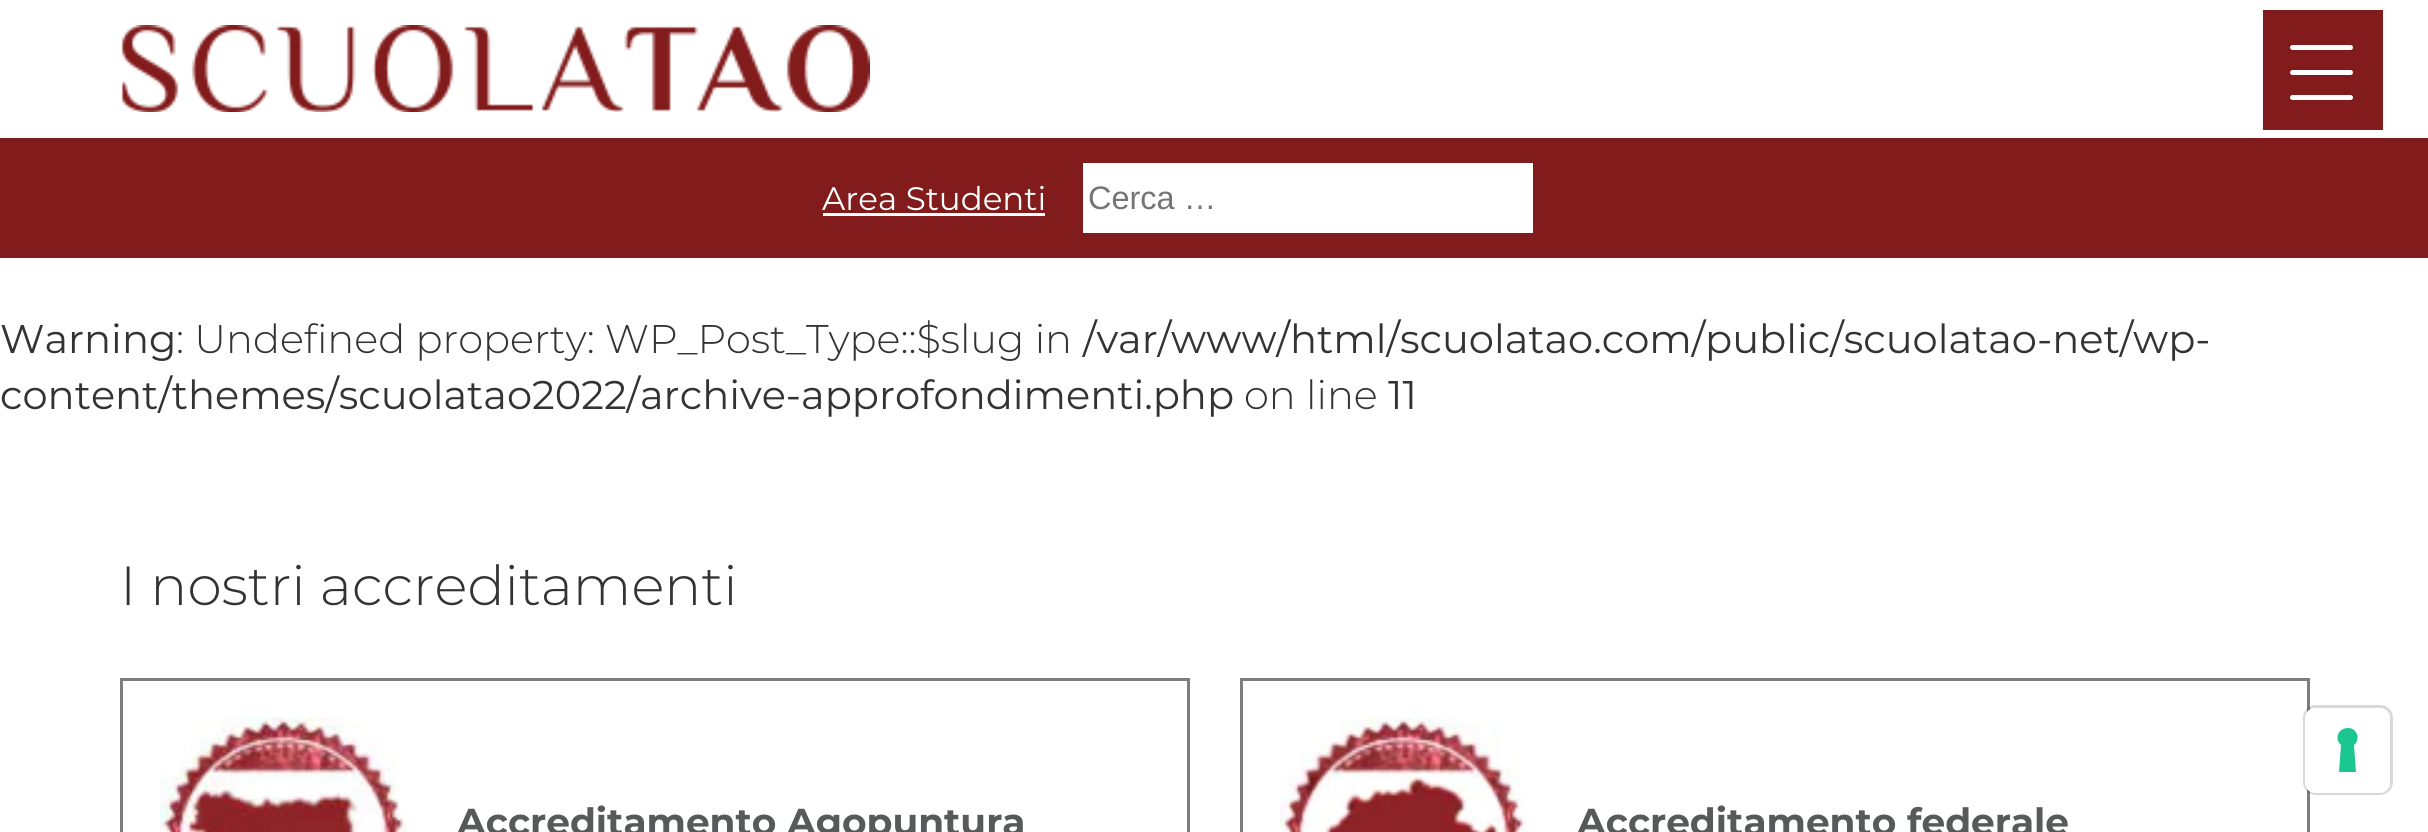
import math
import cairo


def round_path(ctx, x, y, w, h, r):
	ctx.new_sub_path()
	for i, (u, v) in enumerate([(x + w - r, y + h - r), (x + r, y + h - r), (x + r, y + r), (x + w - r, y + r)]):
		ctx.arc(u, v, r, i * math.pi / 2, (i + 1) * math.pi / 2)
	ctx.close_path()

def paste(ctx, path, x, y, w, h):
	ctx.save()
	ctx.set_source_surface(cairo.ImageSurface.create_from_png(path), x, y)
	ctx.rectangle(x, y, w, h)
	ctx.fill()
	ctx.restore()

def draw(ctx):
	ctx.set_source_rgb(1, 1, 1)
	ctx.paint()
	ctx.set_source_rgb(0.51, 0.106, 0.106)
	ctx.rectangle(2263, 10, 120, 120)
	ctx.fill()
	ctx.set_source_rgb(1, 1, 1)
	round_path(ctx, 2290, 70, 63, 5, 2.5)
	ctx.fill()
	round_path(ctx, 2290, 45, 63, 5, 2.5)
	ctx.fill()
	round_path(ctx, 2290, 95, 63, 5, 2.5)
	ctx.fill()
	paste(ctx, 'media/1.png', 121, 25, 749, 87)
	ctx.set_source_rgb(0.51, 0.106, 0.106)
	ctx.rectangle(0, 138, 2428, 120)
	ctx.fill()
	ctx.select_font_face('Montserrat')
	ctx.set_font_size(32.5)
	ctx.set_source_rgb(1, 1, 1)
	ctx.move_to(822, 210)
	ctx.show_text('Area Studenti')
	ctx.rectangle(823, 213, 222, 3)
	ctx.fill()
	ctx.rectangle(1083, 163, 450, 70)
	ctx.fill()
	ctx.select_font_face('Liberation Sans')
	ctx.set_source_rgb(0.459, 0.459, 0.459)
	ctx.move_to(1088, 209)
	ctx.show_text('Cerca …')
	ctx.select_font_face('Montserrat')
	ctx.set_font_size(40)
	ctx.set_source_rgb(0.2, 0.2, 0.2)
	ctx.move_to(0, 353)
	ctx.show_text('Warning')
	ctx.select_font_face('Montserrat Light')
	ctx.move_to(176, 353)
	ctx.show_text(': Undefined property: WP_Post_Type::$slug in')
	ctx.select_font_face('Montserrat')
	ctx.move_to(1083, 353)
	ctx.show_text('/var/www/html/scuolatao.com/public/scuolatao-net/wp-')
	ctx.move_to(0, 409)
	ctx.show_text('content/themes/scuolatao2022/archive-approfondimenti.php')
	ctx.select_font_face('Montserrat Light')
	ctx.move_to(1244, 409)
	ctx.show_text('on line')
	ctx.select_font_face('Montserrat')
	ctx.move_to(1388, 409)
	ctx.show_text('11')
	ctx.select_font_face('Montserrat Light')
	ctx.set_font_size(55)
	ctx.move_to(120, 605)
	ctx.show_text('I nostri accreditamenti')
	ctx.rectangle(121.5, 679.5, 1067, 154)
	ctx.set_source_rgb(0.49, 0.49, 0.49)
	ctx.set_line_width(3)
	ctx.stroke()
	paste(ctx, 'media/2.png', 160, 717, 248, 115)
	ctx.select_font_face('Montserrat', cairo.FONT_SLANT_NORMAL, cairo.FONT_WEIGHT_BOLD)
	ctx.set_font_size(37.5)
	ctx.set_source_rgb(0.345, 0.349, 0.357)
	ctx.move_to(457, 835)
	ctx.show_text('Accreditamento Agopuntura')
	ctx.rectangle(1241.5, 679.5, 1067, 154)
	ctx.set_source_rgb(0.49, 0.49, 0.49)
	ctx.stroke()
	paste(ctx, 'media/3.png', 1280, 717, 247, 115)
	ctx.set_source_rgb(0.345, 0.349, 0.357)
	ctx.move_to(1577, 835)
	ctx.show_text('Accreditamento federale')
	round_path(ctx, 2304.5, 706.5, 87, 87, 11.5)
	ctx.set_source_rgba(0, 0, 0, 0.15)
	ctx.stroke()
	ctx.set_source_rgb(1, 1, 1)
	round_path(ctx, 2305, 708, 85, 85, 10)
	ctx.fill()
	ctx.set_source_rgb(0.11, 0.776, 0.569)
	ctx.set_fill_rule(cairo.FILL_RULE_EVEN_ODD)
	ctx.new_path()
	ctx.move_to(2348, 728)
	ctx.curve_to(2357, 728, 2361, 739, 2354, 745)
	ctx.line_to(2356, 772)
	ctx.line_to(2339, 772)
	ctx.line_to(2341, 745)
	ctx.curve_to(2334, 739, 2338, 728, 2348, 728)
	ctx.close_path()
	ctx.fill()


surface = cairo.ImageSurface(cairo.FORMAT_RGB24, 2428, 832)
ctx = cairo.Context(surface)
options = cairo.FontOptions()
options.set_hint_metrics(cairo.HINT_METRICS_OFF)
options.set_hint_style(cairo.HINT_STYLE_NONE)
ctx.set_font_options(options)
ctx.set_miter_limit(4)
draw(ctx)
surface.write_to_png('image.png')
